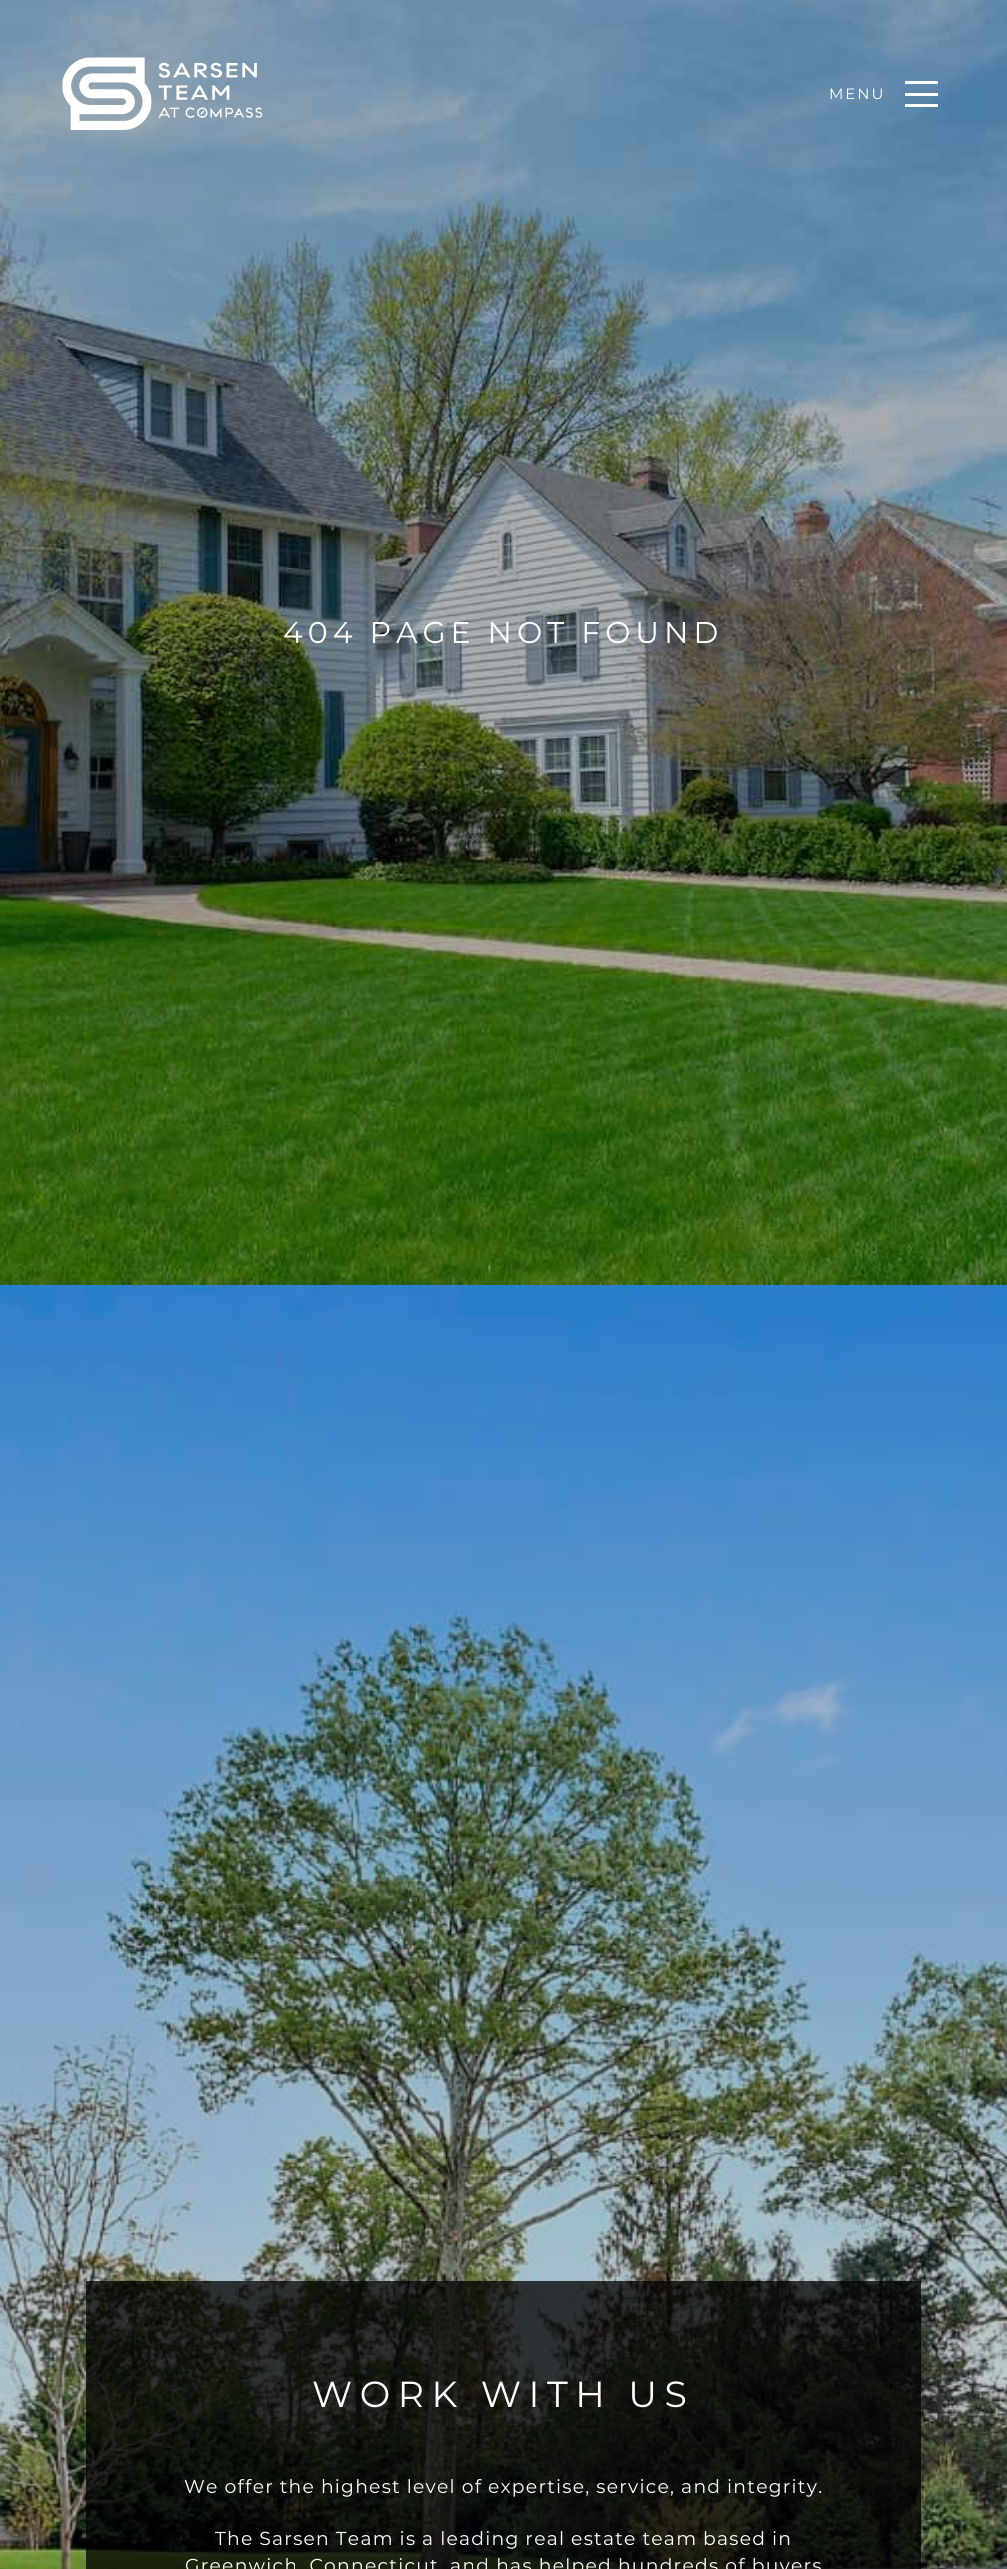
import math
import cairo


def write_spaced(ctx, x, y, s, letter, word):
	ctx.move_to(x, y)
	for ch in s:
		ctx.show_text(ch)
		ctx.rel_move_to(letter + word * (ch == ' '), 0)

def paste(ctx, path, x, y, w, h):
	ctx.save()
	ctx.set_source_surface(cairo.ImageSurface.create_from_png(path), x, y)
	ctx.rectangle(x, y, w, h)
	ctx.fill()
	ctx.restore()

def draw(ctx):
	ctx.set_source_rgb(1, 1, 1)
	ctx.paint()
	paste(ctx, 'media/2.png', 0, 0, 1007, 1285)
	paste(ctx, 'media/1.png', 62, 57, 201, 73)
	ctx.select_font_face('Montserrat')
	ctx.set_font_size(15)
	ctx.set_source_rgb(1, 1, 1)
	write_spaced(ctx, 829, 99, 'MENU', 2, 0)
	ctx.rectangle(905, 93, 33, 3)
	ctx.rectangle(905, 81, 33, 3)
	ctx.rectangle(905, 104, 33, 3)
	ctx.fill()
	ctx.set_font_size(30)
	write_spaced(ctx, 283, 643, '404 PAGE NOT FOUND', 5, -1)
	paste(ctx, 'media/3.png', 0, 1285, 1007, 1284)
	ctx.set_source_rgba(0, 0, 0, 0.75)
	ctx.rectangle(86, 2281, 835, 288)
	ctx.fill()
	ctx.set_font_size(36.25)
	ctx.set_source_rgb(1, 1, 1)
	write_spaced(ctx, 312, 2407, 'WORK WITH US', 7.5, -1)
	ctx.set_font_size(18.75)
	write_spaced(ctx, 184, 2493, 'We offer the highest level of expertise, service, and integrity.', 1.25, -0.4)
	write_spaced(ctx, 215, 2545, 'The Sarsen Team is a leading real estate team based in', 1.25, -0.4)
	write_spaced(ctx, 185, 2572, 'Greenwich, Connecticut, and has helped hundreds of buyers', 1.25, -0.25)


surface = cairo.ImageSurface(cairo.FORMAT_RGB24, 1007, 2569)
ctx = cairo.Context(surface)
options = cairo.FontOptions()
options.set_hint_metrics(cairo.HINT_METRICS_OFF)
options.set_hint_style(cairo.HINT_STYLE_NONE)
ctx.set_font_options(options)
ctx.set_miter_limit(4)
draw(ctx)
surface.write_to_png('image.png')
